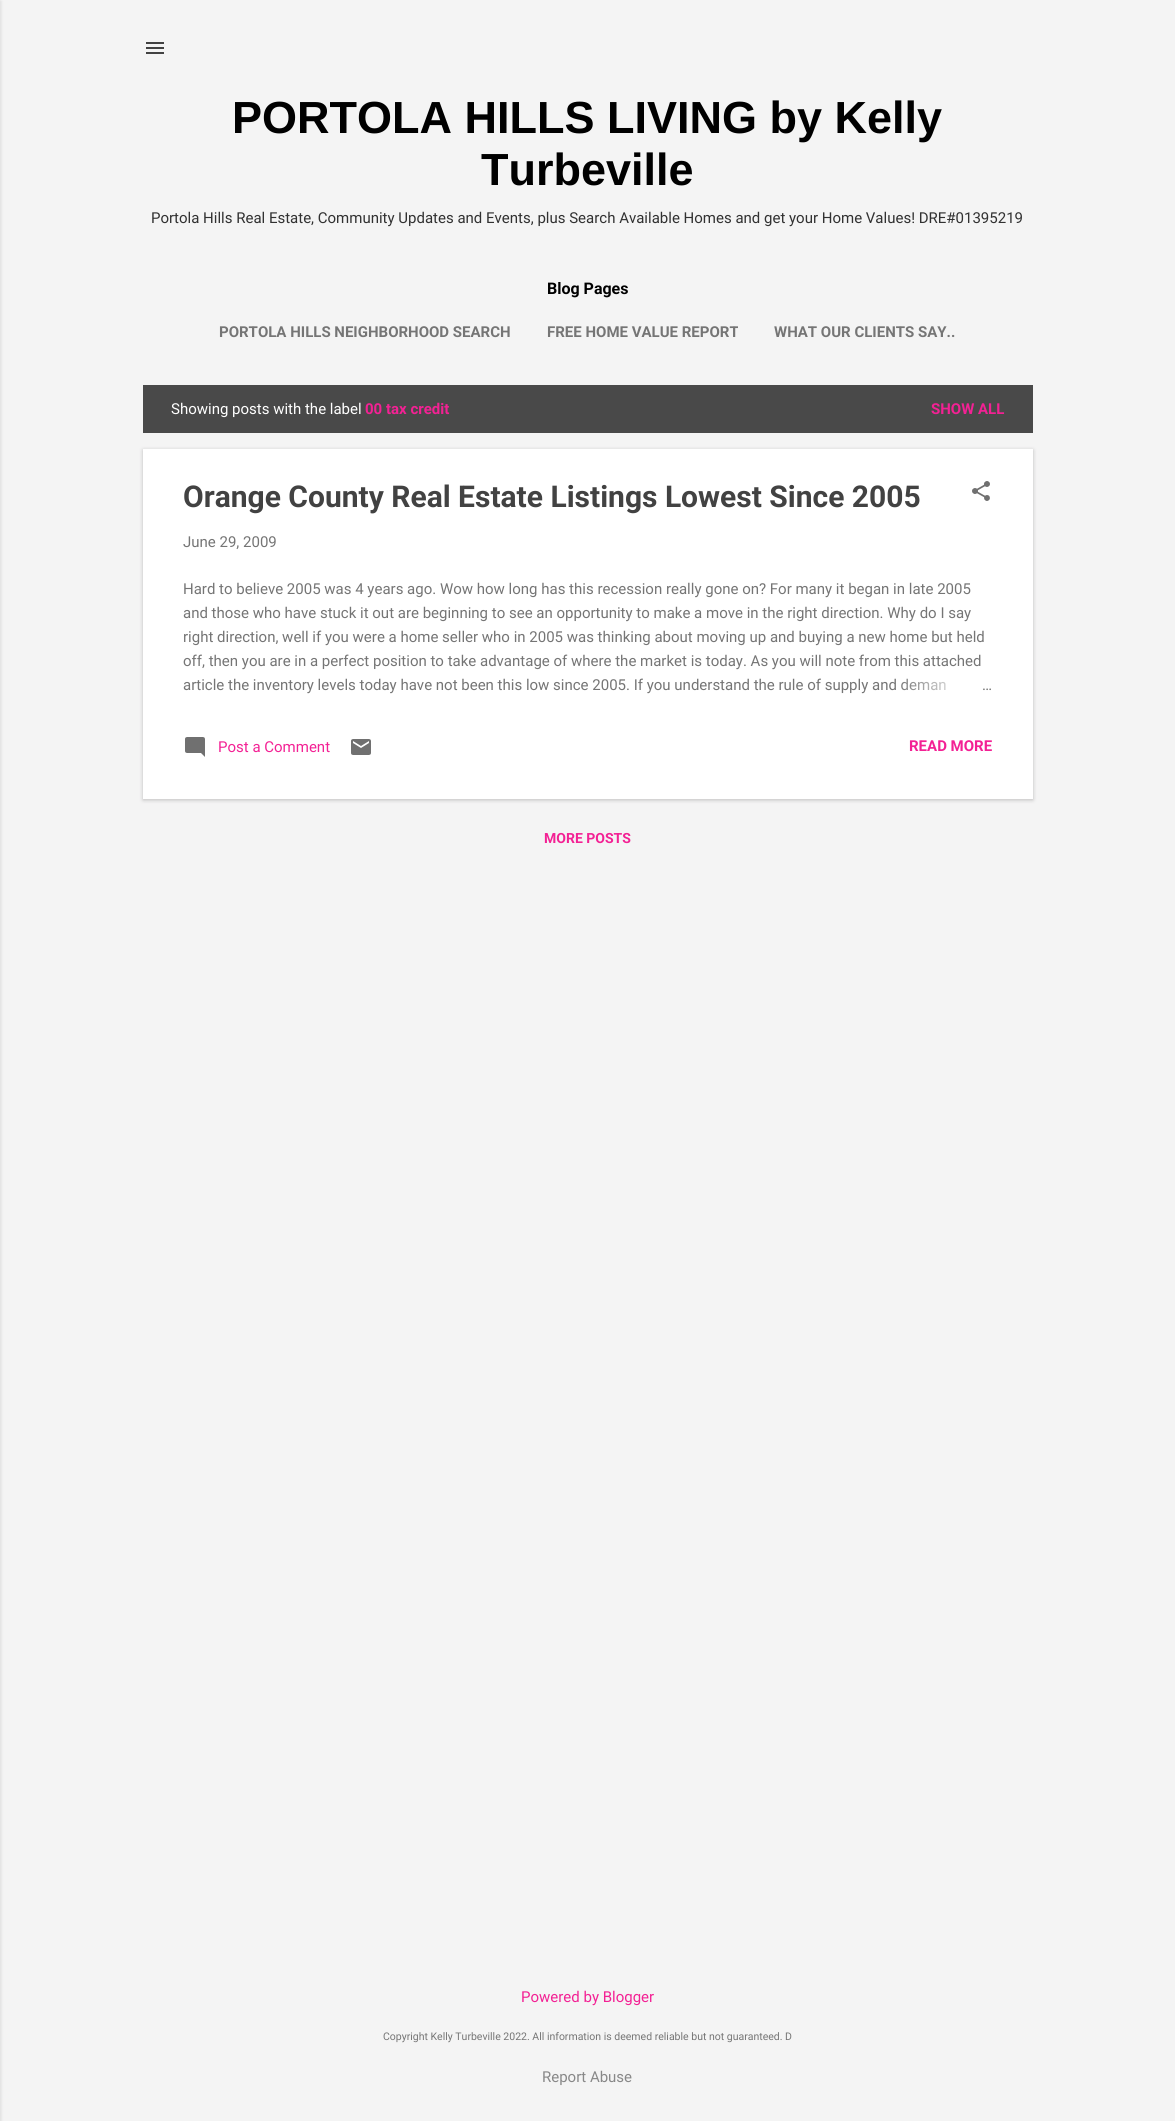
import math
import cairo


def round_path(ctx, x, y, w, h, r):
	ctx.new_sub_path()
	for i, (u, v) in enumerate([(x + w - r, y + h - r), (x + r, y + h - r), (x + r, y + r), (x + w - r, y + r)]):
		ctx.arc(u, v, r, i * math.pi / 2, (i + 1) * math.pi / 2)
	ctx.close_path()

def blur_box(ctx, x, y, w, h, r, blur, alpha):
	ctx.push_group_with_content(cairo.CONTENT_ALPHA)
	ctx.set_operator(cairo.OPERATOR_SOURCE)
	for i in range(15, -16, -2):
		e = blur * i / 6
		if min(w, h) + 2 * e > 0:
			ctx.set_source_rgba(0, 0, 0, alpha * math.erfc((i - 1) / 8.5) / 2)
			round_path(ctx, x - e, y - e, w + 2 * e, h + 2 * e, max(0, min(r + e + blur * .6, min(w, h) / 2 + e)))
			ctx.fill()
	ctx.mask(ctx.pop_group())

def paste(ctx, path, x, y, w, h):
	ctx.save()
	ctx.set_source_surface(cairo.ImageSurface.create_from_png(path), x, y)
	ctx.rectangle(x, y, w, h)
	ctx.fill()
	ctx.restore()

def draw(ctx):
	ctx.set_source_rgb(0.957, 0.957, 0.957)
	ctx.paint()
	ctx.set_source_rgb(0, 0, 0)
	blur_box(ctx, -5, 1, 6, 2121, 0, 1.5, 0.1)
	paste(ctx, 'media/1.png', 146, 42, 18, 12)
	ctx.select_font_face('Liberation Sans', cairo.FONT_SLANT_NORMAL, cairo.FONT_WEIGHT_BOLD)
	ctx.set_font_size(45)
	ctx.set_source_rgb(0, 0, 0)
	ctx.move_to(232, 133)
	ctx.show_text('PORTOLA HILLS LIVING by Kelly')
	ctx.move_to(481, 185)
	ctx.show_text('Turbeville')
	ctx.select_font_face('Roboto')
	ctx.set_font_size(15)
	ctx.set_source_rgb(0.192, 0.192, 0.192)
	ctx.move_to(151, 223)
	ctx.show_text('Portola Hills Real Estate, Community Updates and Events, plus Search Available Homes and get your Home Values! DRE#01395219')
	ctx.select_font_face('Roboto', cairo.FONT_SLANT_NORMAL, cairo.FONT_WEIGHT_BOLD)
	ctx.set_font_size(16)
	ctx.set_source_rgb(0, 0, 0)
	ctx.move_to(547, 294)
	ctx.show_text('Blog Pages')
	ctx.set_font_size(15)
	ctx.set_source_rgb(0.459, 0.459, 0.459)
	for x, y, s in [
		(219, 337, 'PORTOLA HILLS NEIGHBORHOOD SEARCH'),
		(547, 337, 'FREE HOME VALUE REPORT'),
		(774, 337, 'WHAT OUR CLIENTS SAY..'),
	]:
		ctx.move_to(x, y)
		ctx.show_text(s)
	ctx.set_source_rgb(0.286, 0.286, 0.286)
	ctx.rectangle(143, 385, 890, 48)
	ctx.fill()
	ctx.select_font_face('Roboto')
	ctx.set_source_rgb(1, 1, 1)
	ctx.move_to(171, 414)
	ctx.show_text('Showing posts with the label')
	ctx.select_font_face('Roboto', cairo.FONT_SLANT_NORMAL, cairo.FONT_WEIGHT_BOLD)
	ctx.set_source_rgb(0.953, 0.129, 0.58)
	ctx.move_to(365, 414)
	ctx.show_text('00 tax credit')
	ctx.move_to(931, 414)
	ctx.show_text('SHOW ALL')
	ctx.set_source_rgb(0.263, 0.235, 0.251)
	blur_box(ctx, 143, 450, 890, 350, 0, 2, 0.3)
	ctx.set_source_rgb(1, 1, 1)
	ctx.rectangle(143, 449, 890, 350)
	ctx.fill()
	ctx.set_font_size(30)
	ctx.set_source_rgb(0.259, 0.259, 0.259)
	ctx.move_to(183, 507)
	ctx.show_text('Orange County Real Estate Listings Lowest Since 2005')
	paste(ctx, 'media/2.png', 972, 481, 18, 20)
	ctx.select_font_face('Roboto')
	ctx.set_font_size(15)
	ctx.set_source_rgb(0.459, 0.459, 0.459)
	for x, y, s in [
		(183, 547, 'June 29, 2009'),
		(183, 594, 'Hard to believe 2005 was 4 years ago. Wow how long has this recession really gone on? For many it began in late 2005'),
		(183, 618, 'and those who have stuck it out are beginning to see an opportunity to make a move in the right direction. Why do I say'),
		(183, 642, 'right direction, well if you were a home seller who in 2005 was thinking about moving up and buying a new home but held'),
		(183, 666, 'off, then you are in a perfect position to take advantage of where the market is today. As you will note from this attached'),
		(183, 690, 'article the inventory levels today have not been this low since 2005. If you understand the rule of supply and deman'),
	]:
		ctx.move_to(x, y)
		ctx.show_text(s)
	gradient = cairo.LinearGradient(993, 685, 897, 685)
	gradient.add_color_stop_rgba(0, 1, 1, 1, 1)
	gradient.add_color_stop_rgba(0.2, 1, 1, 1, 1)
	gradient.add_color_stop_rgba(1, 1, 1, 1, 0)
	ctx.set_source(gradient)
	ctx.rectangle(901, 678, 45, 13)
	ctx.fill()
	ctx.set_source_rgb(0.459, 0.459, 0.459)
	ctx.move_to(982, 690)
	ctx.show_text('…')
	paste(ctx, 'media/3.png', 185, 737, 20, 20)
	ctx.set_source_rgb(0.953, 0.129, 0.58)
	ctx.move_to(218, 752)
	ctx.show_text('Post a Comment')
	paste(ctx, 'media/4.png', 351, 739, 20, 16)
	ctx.select_font_face('Roboto', cairo.FONT_SLANT_NORMAL, cairo.FONT_WEIGHT_BOLD)
	ctx.move_to(909, 751)
	ctx.show_text('READ MORE')
	ctx.set_font_size(14)
	ctx.move_to(544, 843)
	ctx.show_text('MORE POSTS')
	ctx.select_font_face('Roboto')
	ctx.set_font_size(15)
	ctx.move_to(521, 2002)
	ctx.show_text('Powered by Blogger')
	ctx.set_font_size(10.5)
	ctx.set_source_rgb(0.459, 0.459, 0.459)
	ctx.move_to(383, 2040)
	ctx.show_text('Copyright Kelly Turbeville 2022. All information is deemed reliable but not guaranteed. D')
	ctx.set_font_size(15)
	ctx.set_source_rgb(0.533, 0.533, 0.533)
	ctx.move_to(542, 2082)
	ctx.show_text('Report Abuse')


surface = cairo.ImageSurface(cairo.FORMAT_RGB24, 1175, 2121)
ctx = cairo.Context(surface)
options = cairo.FontOptions()
options.set_hint_metrics(cairo.HINT_METRICS_OFF)
options.set_hint_style(cairo.HINT_STYLE_NONE)
ctx.set_font_options(options)
ctx.set_miter_limit(4)
draw(ctx)
surface.write_to_png('image.png')
